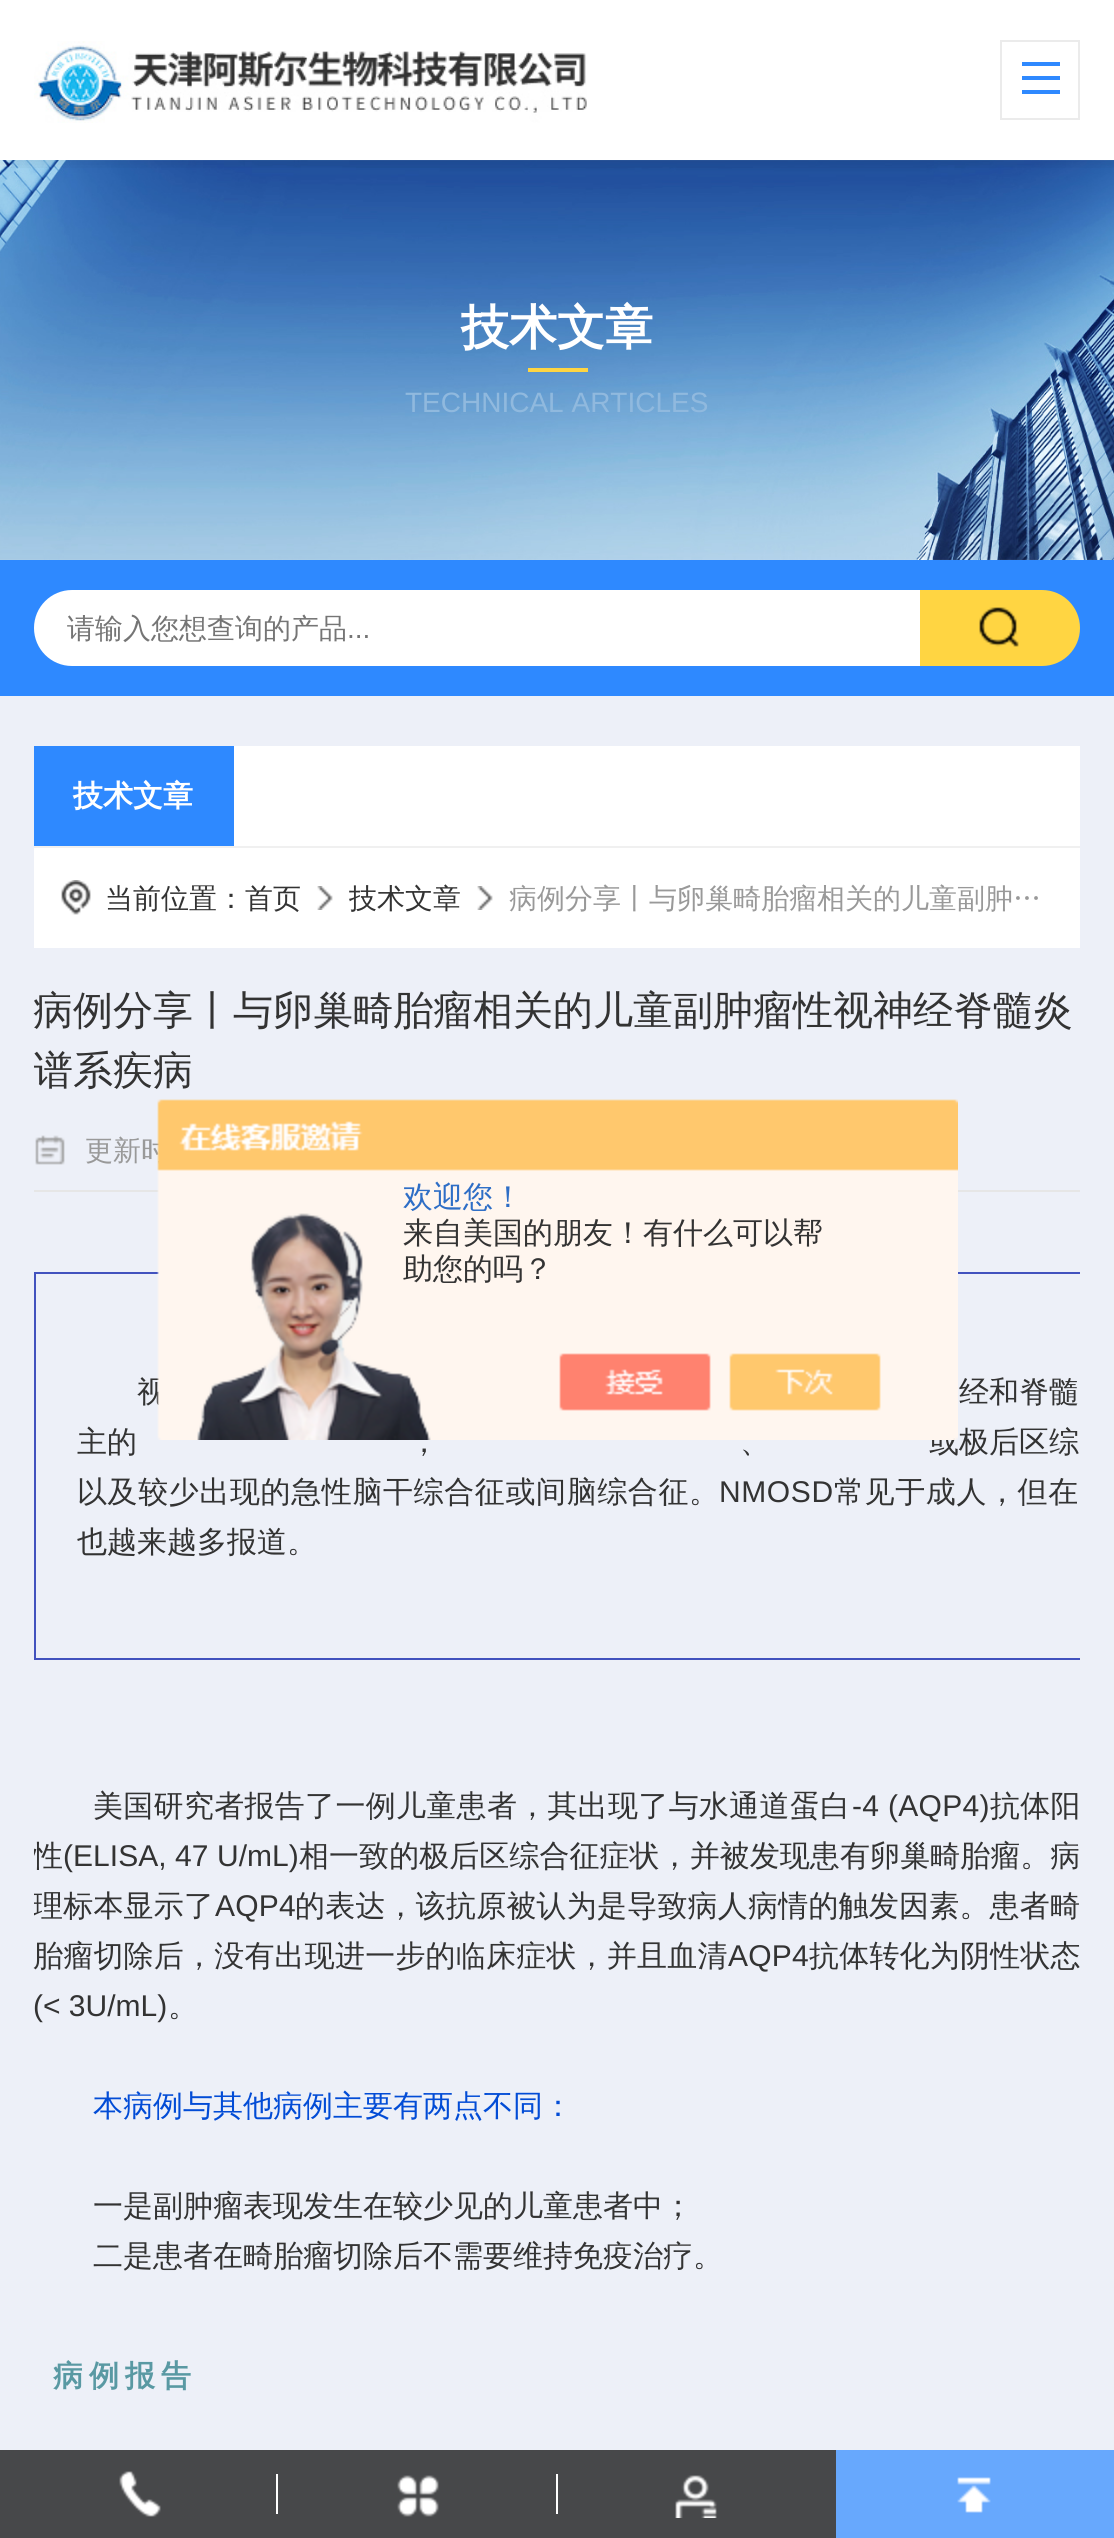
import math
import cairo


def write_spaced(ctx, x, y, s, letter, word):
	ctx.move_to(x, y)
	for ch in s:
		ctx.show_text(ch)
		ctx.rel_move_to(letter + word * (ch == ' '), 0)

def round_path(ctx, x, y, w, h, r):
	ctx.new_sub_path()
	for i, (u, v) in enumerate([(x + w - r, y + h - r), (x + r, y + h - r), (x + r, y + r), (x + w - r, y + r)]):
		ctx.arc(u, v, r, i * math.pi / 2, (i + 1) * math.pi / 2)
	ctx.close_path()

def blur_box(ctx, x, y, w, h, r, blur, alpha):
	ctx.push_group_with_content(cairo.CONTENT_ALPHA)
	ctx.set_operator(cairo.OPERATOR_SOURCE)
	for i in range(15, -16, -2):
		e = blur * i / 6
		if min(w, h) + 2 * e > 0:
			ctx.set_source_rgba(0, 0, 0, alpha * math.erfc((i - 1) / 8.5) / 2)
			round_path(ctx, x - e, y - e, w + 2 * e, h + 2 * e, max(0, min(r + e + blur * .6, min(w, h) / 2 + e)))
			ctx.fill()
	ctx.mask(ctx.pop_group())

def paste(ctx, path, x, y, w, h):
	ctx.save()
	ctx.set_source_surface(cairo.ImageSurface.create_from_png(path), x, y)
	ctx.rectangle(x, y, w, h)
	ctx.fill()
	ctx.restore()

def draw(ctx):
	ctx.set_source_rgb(1, 1, 1)
	ctx.paint()
	paste(ctx, 'media/2.png', 0, 160, 1114, 400)
	ctx.save()
	ctx.rectangle(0, 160, 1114, 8)
	ctx.clip()
	ctx.set_source_rgb(0, 0, 0)
	blur_box(ctx, 0, 0, 1114, 160, 0, 10, 0.1)
	ctx.restore()
	paste(ctx, 'media/1.png', 34, 41, 553, 82)
	ctx.rectangle(1001, 41, 78, 78)
	ctx.set_source_rgb(0.918, 0.918, 0.918)
	ctx.stroke()
	ctx.set_source_rgb(0.18, 0.537, 1)
	ctx.rectangle(1022, 62, 38, 4)
	ctx.rectangle(1022, 76, 38, 4)
	ctx.rectangle(1022, 90, 38, 4)
	ctx.fill()
	ctx.select_font_face('WenQuanYi Zen Hei', cairo.FONT_SLANT_NORMAL, cairo.FONT_WEIGHT_BOLD)
	ctx.set_font_size(48)
	ctx.set_source_rgb(1, 1, 1)
	ctx.move_to(461, 344)
	ctx.show_text('技术文章')
	ctx.set_source_rgb(1, 0.835, 0.259)
	ctx.rectangle(528, 368, 60, 4)
	ctx.fill()
	ctx.select_font_face('Liberation Sans')
	ctx.set_font_size(28)
	ctx.set_source_rgb(0.565, 0.725, 0.871)
	ctx.move_to(405, 412)
	ctx.show_text('TECHNICAL ARTICLES')
	ctx.set_source_rgb(0.18, 0.537, 1)
	ctx.rectangle(0, 560, 1114, 136)
	ctx.fill()
	ctx.set_source_rgb(1, 1, 1)
	ctx.new_path()
	ctx.move_to(72, 590)
	ctx.line_to(944, 590)
	ctx.line_to(944, 666)
	ctx.line_to(72, 666)
	ctx.curve_to(51, 666, 34, 649, 34, 628)
	ctx.curve_to(34, 607, 51, 590, 72, 590)
	ctx.close_path()
	ctx.fill()
	ctx.select_font_face('WenQuanYi Zen Hei Medium')
	ctx.set_source_rgb(0.459, 0.459, 0.459)
	ctx.move_to(67, 638)
	ctx.show_text('请输入您想查询的产品')
	ctx.select_font_face('Liberation Sans')
	ctx.move_to(347, 638)
	ctx.show_text('...')
	ctx.set_source_rgb(1, 0.835, 0.259)
	ctx.new_path()
	ctx.move_to(920, 590)
	ctx.line_to(1042, 590)
	ctx.curve_to(1063, 590, 1080, 607, 1080, 628)
	ctx.curve_to(1080, 649, 1063, 666, 1042, 666)
	ctx.line_to(920, 666)
	ctx.close_path()
	ctx.fill()
	paste(ctx, 'media/3.png', 979, 607, 40, 40)
	ctx.set_source_rgb(0.929, 0.941, 0.969)
	ctx.rectangle(0, 696, 1114, 1754)
	ctx.fill()
	ctx.set_source_rgb(1, 1, 1)
	ctx.rectangle(34, 746, 1046, 202)
	ctx.fill()
	ctx.set_source_rgb(0.941, 0.941, 0.941)
	ctx.rectangle(34, 846, 1046, 2)
	ctx.fill()
	ctx.set_source_rgb(0.18, 0.537, 1)
	ctx.rectangle(34, 746, 200, 100)
	ctx.fill()
	ctx.select_font_face('WenQuanYi Zen Hei', cairo.FONT_SLANT_NORMAL, cairo.FONT_WEIGHT_BOLD)
	ctx.set_font_size(30)
	ctx.set_source_rgb(1, 1, 1)
	ctx.move_to(73, 806)
	ctx.show_text('技术文章')
	paste(ctx, 'media/4.png', 61, 880, 30, 35)
	ctx.select_font_face('WenQuanYi Zen Hei Medium')
	ctx.set_font_size(28)
	ctx.set_source_rgb(0.2, 0.2, 0.2)
	ctx.move_to(105, 908)
	ctx.show_text('当前位置：首页')
	paste(ctx, 'media/5.png', 317, 886, 16, 24)
	ctx.move_to(349, 908)
	ctx.show_text('技术文章')
	paste(ctx, 'media/5.png', 477, 886, 16, 24)
	ctx.set_source_rgb(0.6, 0.6, 0.6)
	ctx.move_to(509, 908)
	ctx.show_text('病例分享丨与卵巢畸胎瘤相关的儿童副肿…')
	ctx.set_font_size(40)
	ctx.set_source_rgb(0.2, 0.2, 0.2)
	ctx.move_to(33, 1024)
	ctx.show_text('病例分享丨与卵巢畸胎瘤相关的儿童副肿瘤性视神经脊髓炎')
	ctx.save()
	ctx.rectangle(34, 980, 1046, 120)
	ctx.clip()
	ctx.move_to(33, 1084)
	ctx.show_text('谱系疾病')
	ctx.restore()
	ctx.set_source_rgb(0.902, 0.902, 0.902)
	ctx.rectangle(34, 1190, 1046, 2)
	ctx.fill()
	paste(ctx, 'media/6.png', 35, 1135, 30, 30)
	ctx.set_font_size(28)
	ctx.set_source_rgb(0.6, 0.6, 0.6)
	ctx.move_to(85, 1160)
	ctx.show_text('更新时')
	ctx.save()
	ctx.rectangle(34, 1232, 1046, 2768)
	ctx.clip()
	ctx.rectangle(35, 1273, 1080, 386)
	ctx.set_source_rgb(0.259, 0.322, 0.745)
	ctx.stroke()
	ctx.restore()
	ctx.set_font_size(30)
	ctx.set_source_rgb(0.2, 0.2, 0.2)
	for x, y, s in [
		(137, 1402, '视'),
		(959, 1402, '经和脊髓'),
		(77, 1452, '主的'),
		(409, 1452, '，'),
		(740, 1452, '、'),
		(929, 1452, '或极后区综'),
	]:
		ctx.move_to(x, y)
		ctx.show_text(s)
	write_spaced(ctx, 77, 1502, '以及较少出现的急性脑干综合征或间脑综合征。', 0.6, 0)
	ctx.select_font_face('Liberation Sans')
	write_spaced(ctx, 719, 1502, 'NMOSD', 0.6, 0)
	ctx.select_font_face('WenQuanYi Zen Hei Medium')
	write_spaced(ctx, 834, 1502, '常见于成人，但在', 0.6, 0)
	ctx.move_to(77, 1552)
	ctx.show_text('也越来越多报道。')
	write_spaced(ctx, 93, 1816, '美国研究者报告了一例儿童患者，其出现了与水通道蛋白', 0.3, 0)
	ctx.select_font_face('Liberation Sans')
	write_spaced(ctx, 852, 1816, '-4 (AQP4)', 0.3, 0)
	ctx.select_font_face('WenQuanYi Zen Hei Medium')
	write_spaced(ctx, 990, 1816, '抗体阳', 0.3, 0)
	ctx.save()
	ctx.rectangle(34, 1780, 1046, 250)
	ctx.clip()
	write_spaced(ctx, 33, 1866, '性', 0.05, 0)
	ctx.restore()
	ctx.select_font_face('Liberation Sans')
	write_spaced(ctx, 63, 1866, '(ELISA, 47 U/mL)', 0.05, 0)
	ctx.select_font_face('WenQuanYi Zen Hei Medium')
	write_spaced(ctx, 299, 1866, '相一致的极后区综合征症状，并被发现患有卵巢畸胎瘤。病', 0.05, 0)
	ctx.save()
	ctx.rectangle(34, 1780, 1046, 250)
	ctx.clip()
	write_spaced(ctx, 33, 1916, '理标本显示了', 0.2, 0)
	ctx.restore()
	ctx.select_font_face('Liberation Sans')
	write_spaced(ctx, 215, 1916, 'AQP4', 0.2, 0)
	ctx.select_font_face('WenQuanYi Zen Hei Medium')
	write_spaced(ctx, 295, 1916, '的表达，该抗原被认为是导致病人病情的触发因素。患者畸', 0.2, 0)
	write_spaced(ctx, 33, 1966, '胎瘤切除后，没有出现进一步的临床症状，并且血清', 0.2, 0)
	ctx.select_font_face('Liberation Sans')
	write_spaced(ctx, 728, 1966, 'AQP4', 0.2, 0)
	ctx.select_font_face('WenQuanYi Zen Hei Medium')
	write_spaced(ctx, 809, 1966, '抗体转化为阴性状态', 0.2, 0)
	ctx.select_font_face('Liberation Sans')
	ctx.move_to(33, 2016)
	ctx.show_text('(< 3U/mL)')
	ctx.select_font_face('WenQuanYi Zen Hei Medium')
	ctx.move_to(168, 2016)
	ctx.show_text('。')
	ctx.set_source_rgb(0.008, 0.298, 0.839)
	ctx.move_to(93, 2116)
	ctx.show_text('本病例与其他病例主要有两点不同：')
	ctx.set_source_rgb(0.2, 0.2, 0.2)
	ctx.move_to(93, 2216)
	ctx.show_text('一是副肿瘤表现发生在较少见的儿童患者中；')
	ctx.move_to(93, 2266)
	ctx.show_text('二是患者在畸胎瘤切除后不需要维持免疫治疗。')
	ctx.select_font_face('WenQuanYi Zen Hei', cairo.FONT_SLANT_NORMAL, cairo.FONT_WEIGHT_BOLD)
	ctx.set_source_rgb(0.349, 0.6, 0.639)
	write_spaced(ctx, 53, 2386, '病例报告', 6, 0)
	paste(ctx, 'media/7.png', 157, 1099, 801, 341)
	ctx.select_font_face('WenQuanYi Zen Hei Medium')
	ctx.set_source_rgb(0.18, 0.431, 0.776)
	ctx.move_to(403, 1207)
	ctx.show_text('欢迎您！')
	ctx.set_source_rgb(0.2, 0.2, 0.2)
	ctx.move_to(403, 1243)
	ctx.show_text('来自美国的朋友！有什么可以帮')
	ctx.move_to(403, 1279)
	ctx.show_text('助您的吗？')
	ctx.set_source_rgb(0.278, 0.282, 0.29)
	ctx.rectangle(0, 2450, 836, 88)
	ctx.fill()
	paste(ctx, 'media/8.png', 119, 2471, 42, 46)
	ctx.set_source_rgb(1, 1, 1)
	ctx.rectangle(276, 2474, 2, 40)
	ctx.fill()
	ctx.set_source_rgb(0.404, 0.659, 0.992)
	ctx.rectangle(836, 2450, 278, 88)
	ctx.fill()
	paste(ctx, 'media/9.png', 957, 2477, 34, 36)
	paste(ctx, 'media/10.png', 397, 2475, 42, 42)
	ctx.set_source_rgb(1, 1, 1)
	ctx.rectangle(556, 2474, 2, 40)
	ctx.fill()
	paste(ctx, 'media/11.png', 675, 2475, 42, 43)


surface = cairo.ImageSurface(cairo.FORMAT_RGB24, 1114, 2538)
ctx = cairo.Context(surface)
options = cairo.FontOptions()
options.set_hint_metrics(cairo.HINT_METRICS_OFF)
options.set_hint_style(cairo.HINT_STYLE_NONE)
ctx.set_font_options(options)
ctx.set_miter_limit(4)
draw(ctx)
surface.write_to_png('image.png')
